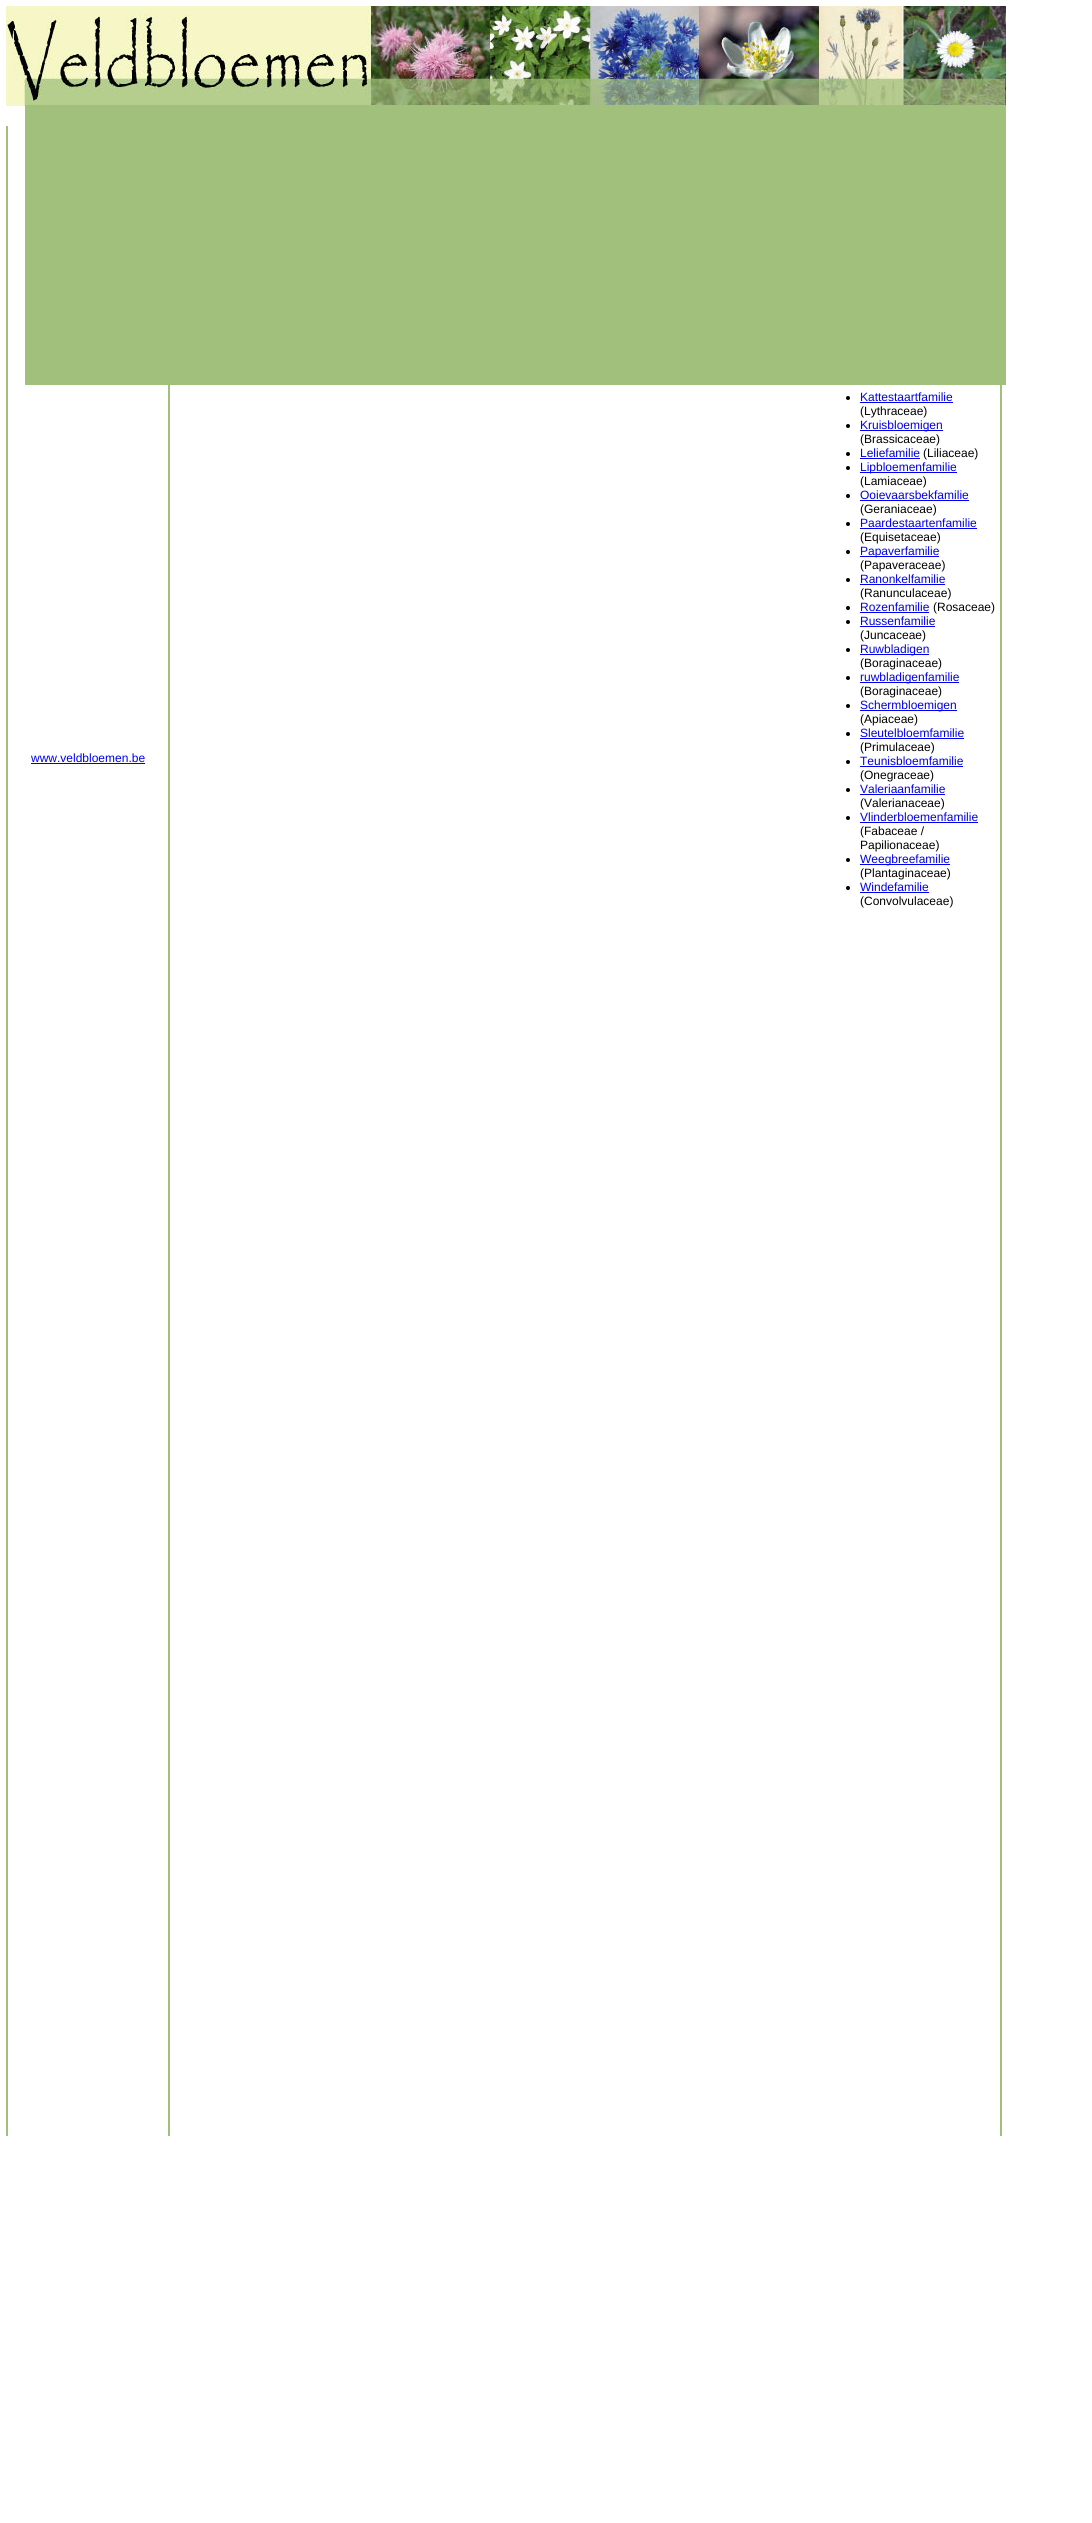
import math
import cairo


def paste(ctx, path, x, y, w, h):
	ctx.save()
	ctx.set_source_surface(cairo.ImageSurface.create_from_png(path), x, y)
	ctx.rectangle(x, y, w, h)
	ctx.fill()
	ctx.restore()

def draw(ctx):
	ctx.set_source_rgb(1, 1, 1)
	ctx.paint()
	paste(ctx, 'media/1.png', 6, 6, 1000, 100)
	ctx.set_source_rgb(0.627, 0.753, 0.486)
	ctx.rectangle(25, 105, 981, 280)
	ctx.rectangle(168, 385, 2, 1751)
	ctx.rectangle(6, 126, 2, 2010)
	ctx.fill()
	ctx.select_font_face('Liberation Sans')
	ctx.set_font_size(12)
	ctx.set_source_rgb(0, 0, 0.933)
	ctx.move_to(31, 762)
	ctx.show_text('www.veldbloemen.be')
	ctx.rectangle(31, 763, 114, 1)
	ctx.fill()
	ctx.set_source_rgb(0.627, 0.753, 0.486)
	ctx.rectangle(1000, 385, 2, 1751)
	ctx.fill()
	ctx.set_source_rgb(0, 0, 0)
	ctx.arc(848, 398, 2, 0, 2 * math.pi)
	ctx.fill()
	ctx.set_source_rgb(0, 0, 0.933)
	ctx.move_to(860, 401)
	ctx.show_text('Kattestaartfamilie')
	ctx.rectangle(860, 402, 93, 1)
	ctx.fill()
	ctx.set_source_rgb(0, 0, 0)
	ctx.move_to(860, 415)
	ctx.show_text('(Lythraceae)')
	ctx.new_path()
	ctx.arc(848, 426, 2, 0, 2 * math.pi)
	ctx.fill()
	ctx.set_source_rgb(0, 0, 0.933)
	ctx.rectangle(860, 430, 83, 1)
	ctx.fill()
	ctx.move_to(860, 429)
	ctx.show_text('Kruisbloemigen')
	ctx.set_source_rgb(0, 0, 0)
	ctx.move_to(860, 443)
	ctx.show_text('(Brassicaceae)')
	ctx.new_path()
	ctx.arc(848, 454, 2, 0, 2 * math.pi)
	ctx.fill()
	ctx.set_source_rgb(0, 0, 0.933)
	ctx.move_to(860, 457)
	ctx.show_text('Leliefamilie')
	ctx.rectangle(860, 458, 60, 1)
	ctx.fill()
	ctx.set_source_rgb(0, 0, 0)
	ctx.move_to(923, 457)
	ctx.show_text('(Liliaceae)')
	ctx.new_path()
	ctx.arc(848, 468, 2, 0, 2 * math.pi)
	ctx.fill()
	ctx.set_source_rgb(0, 0, 0.933)
	ctx.rectangle(860, 472, 97, 1)
	ctx.fill()
	ctx.move_to(860, 471)
	ctx.show_text('Lipbloemenfamilie')
	ctx.set_source_rgb(0, 0, 0)
	ctx.move_to(860, 485)
	ctx.show_text('(Lamiaceae)')
	ctx.new_path()
	ctx.arc(848, 496, 2, 0, 2 * math.pi)
	ctx.fill()
	ctx.set_source_rgb(0, 0, 0.933)
	ctx.move_to(860, 499)
	ctx.show_text('Ooievaarsbekfamilie')
	ctx.rectangle(860, 500, 109, 1)
	ctx.fill()
	ctx.set_source_rgb(0, 0, 0)
	ctx.move_to(860, 513)
	ctx.show_text('(Geraniaceae)')
	ctx.new_path()
	ctx.arc(848, 524, 2, 0, 2 * math.pi)
	ctx.fill()
	ctx.set_source_rgb(0, 0, 0.933)
	ctx.move_to(860, 527)
	ctx.show_text('Paardestaartenfamilie')
	ctx.rectangle(860, 528, 117, 1)
	ctx.fill()
	ctx.set_source_rgb(0, 0, 0)
	ctx.move_to(860, 541)
	ctx.show_text('(Equisetaceae)')
	ctx.new_path()
	ctx.arc(848, 552, 2, 0, 2 * math.pi)
	ctx.fill()
	ctx.set_source_rgb(0, 0, 0.933)
	ctx.rectangle(860, 556, 79, 1)
	ctx.fill()
	ctx.move_to(860, 555)
	ctx.show_text('Papaverfamilie')
	ctx.set_source_rgb(0, 0, 0)
	ctx.move_to(860, 569)
	ctx.show_text('(Papaveraceae)')
	ctx.new_path()
	ctx.arc(848, 580, 2, 0, 2 * math.pi)
	ctx.fill()
	ctx.set_source_rgb(0, 0, 0.933)
	ctx.move_to(860, 583)
	ctx.show_text('Ranonkelfamilie')
	ctx.rectangle(860, 584, 85, 1)
	ctx.fill()
	ctx.set_source_rgb(0, 0, 0)
	ctx.move_to(860, 597)
	ctx.show_text('(Ranunculaceae)')
	ctx.new_path()
	ctx.arc(848, 608, 2, 0, 2 * math.pi)
	ctx.fill()
	ctx.set_source_rgb(0, 0, 0.933)
	ctx.move_to(860, 611)
	ctx.show_text('Rozenfamilie')
	ctx.rectangle(860, 612, 69, 1)
	ctx.fill()
	ctx.set_source_rgb(0, 0, 0)
	ctx.move_to(933, 611)
	ctx.show_text('(Rosaceae)')
	ctx.new_path()
	ctx.arc(848, 622, 2, 0, 2 * math.pi)
	ctx.fill()
	ctx.set_source_rgb(0, 0, 0.933)
	ctx.move_to(860, 625)
	ctx.show_text('Russenfamilie')
	ctx.rectangle(860, 626, 75, 1)
	ctx.fill()
	ctx.set_source_rgb(0, 0, 0)
	ctx.move_to(860, 639)
	ctx.show_text('(Juncaceae)')
	ctx.new_path()
	ctx.arc(848, 650, 2, 0, 2 * math.pi)
	ctx.fill()
	ctx.set_source_rgb(0, 0, 0.933)
	ctx.rectangle(860, 654, 69, 1)
	ctx.fill()
	ctx.move_to(860, 653)
	ctx.show_text('Ruwbladigen')
	ctx.set_source_rgb(0, 0, 0)
	ctx.move_to(860, 667)
	ctx.show_text('(Boraginaceae)')
	ctx.new_path()
	ctx.arc(848, 678, 2, 0, 2 * math.pi)
	ctx.fill()
	ctx.set_source_rgb(0, 0, 0.933)
	ctx.rectangle(860, 682, 99, 1)
	ctx.fill()
	ctx.move_to(860, 681)
	ctx.show_text('ruwbladigenfamilie')
	ctx.set_source_rgb(0, 0, 0)
	ctx.move_to(860, 695)
	ctx.show_text('(Boraginaceae)')
	ctx.new_path()
	ctx.arc(848, 706, 2, 0, 2 * math.pi)
	ctx.fill()
	ctx.set_source_rgb(0, 0, 0.933)
	ctx.rectangle(860, 710, 97, 1)
	ctx.fill()
	ctx.move_to(860, 709)
	ctx.show_text('Schermbloemigen')
	ctx.set_source_rgb(0, 0, 0)
	ctx.move_to(860, 723)
	ctx.show_text('(Apiaceae)')
	ctx.new_path()
	ctx.arc(848, 734, 2, 0, 2 * math.pi)
	ctx.fill()
	ctx.set_source_rgb(0, 0, 0.933)
	ctx.move_to(860, 737)
	ctx.show_text('Sleutelbloemfamilie')
	ctx.rectangle(860, 738, 104, 1)
	ctx.fill()
	ctx.set_source_rgb(0, 0, 0)
	ctx.move_to(860, 751)
	ctx.show_text('(Primulaceae)')
	ctx.new_path()
	ctx.arc(848, 762, 2, 0, 2 * math.pi)
	ctx.fill()
	ctx.set_source_rgb(0, 0, 0.933)
	ctx.move_to(860, 765)
	ctx.show_text('Teunisbloemfamilie')
	ctx.rectangle(860, 766, 103, 1)
	ctx.fill()
	ctx.set_source_rgb(0, 0, 0)
	ctx.move_to(860, 779)
	ctx.show_text('(Onegraceae)')
	ctx.new_path()
	ctx.arc(848, 790, 2, 0, 2 * math.pi)
	ctx.fill()
	ctx.set_source_rgb(0, 0, 0.933)
	ctx.move_to(860, 793)
	ctx.show_text('Valeriaanfamilie')
	ctx.rectangle(860, 794, 85, 1)
	ctx.fill()
	ctx.set_source_rgb(0, 0, 0)
	ctx.move_to(860, 807)
	ctx.show_text('(Valerianaceae)')
	ctx.new_path()
	ctx.arc(848, 818, 2, 0, 2 * math.pi)
	ctx.fill()
	ctx.set_source_rgb(0, 0, 0.933)
	ctx.move_to(860, 821)
	ctx.show_text('Vlinderbloemenfamilie')
	ctx.rectangle(860, 822, 118, 1)
	ctx.fill()
	ctx.set_source_rgb(0, 0, 0)
	ctx.move_to(860, 835)
	ctx.show_text('(Fabaceae /')
	ctx.move_to(860, 849)
	ctx.show_text('Papilionaceae)')
	ctx.new_path()
	ctx.arc(848, 860, 2, 0, 2 * math.pi)
	ctx.fill()
	ctx.set_source_rgb(0, 0, 0.933)
	ctx.rectangle(860, 864, 90, 1)
	ctx.fill()
	ctx.move_to(860, 863)
	ctx.show_text('Weegbreefamilie')
	ctx.set_source_rgb(0, 0, 0)
	ctx.move_to(860, 877)
	ctx.show_text('(Plantaginaceae)')
	ctx.new_path()
	ctx.arc(848, 888, 2, 0, 2 * math.pi)
	ctx.fill()
	ctx.set_source_rgb(0, 0, 0.933)
	ctx.move_to(860, 891)
	ctx.show_text('Windefamilie')
	ctx.rectangle(860, 892, 69, 1)
	ctx.fill()
	ctx.set_source_rgb(0, 0, 0)
	ctx.move_to(860, 905)
	ctx.show_text('(Convolvulaceae)')


surface = cairo.ImageSurface(cairo.FORMAT_RGB24, 1092, 2523)
ctx = cairo.Context(surface)
options = cairo.FontOptions()
options.set_hint_metrics(cairo.HINT_METRICS_OFF)
options.set_hint_style(cairo.HINT_STYLE_NONE)
ctx.set_font_options(options)
ctx.set_miter_limit(4)
draw(ctx)
surface.write_to_png('image.png')
